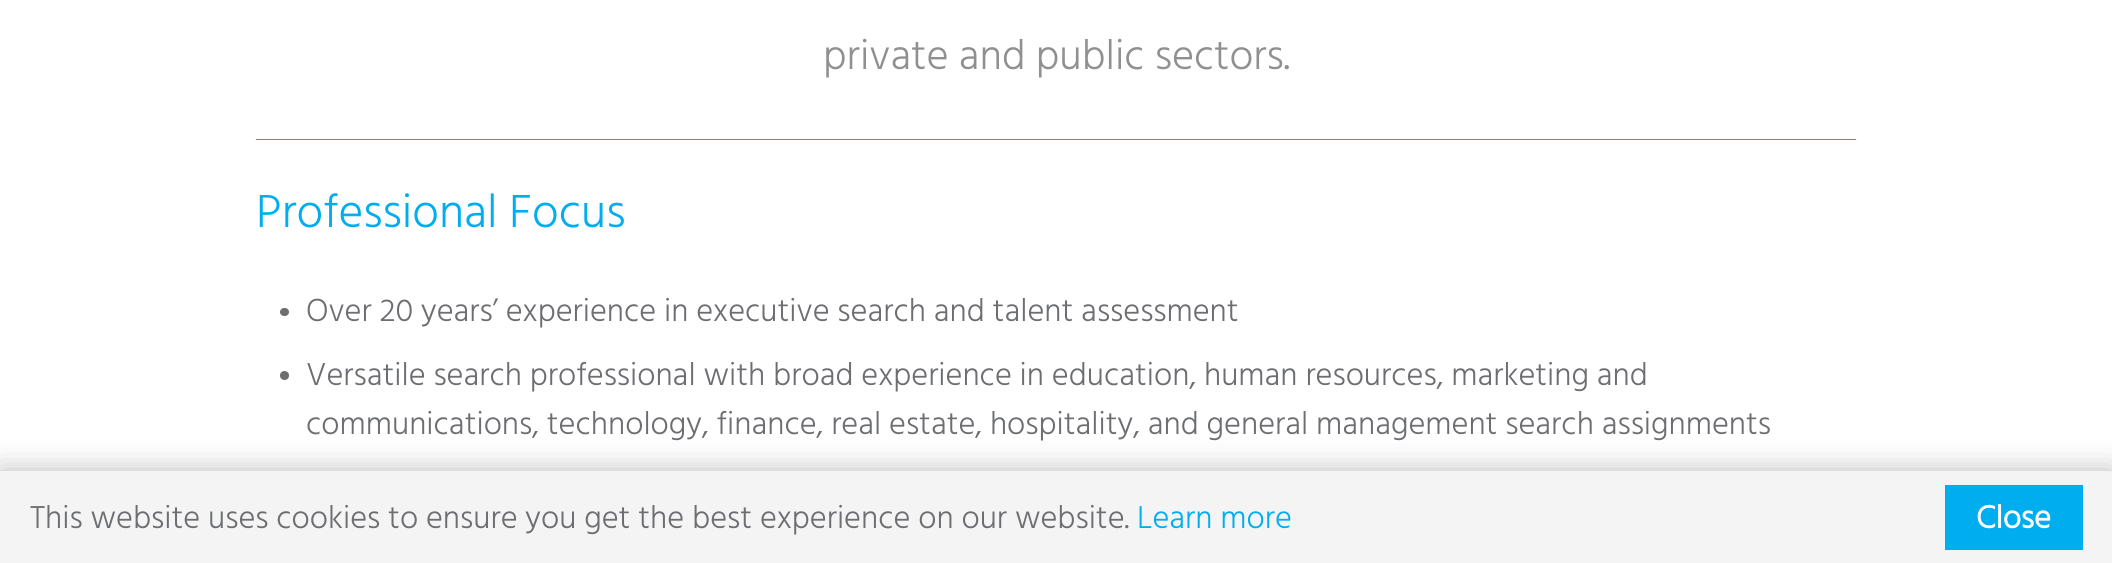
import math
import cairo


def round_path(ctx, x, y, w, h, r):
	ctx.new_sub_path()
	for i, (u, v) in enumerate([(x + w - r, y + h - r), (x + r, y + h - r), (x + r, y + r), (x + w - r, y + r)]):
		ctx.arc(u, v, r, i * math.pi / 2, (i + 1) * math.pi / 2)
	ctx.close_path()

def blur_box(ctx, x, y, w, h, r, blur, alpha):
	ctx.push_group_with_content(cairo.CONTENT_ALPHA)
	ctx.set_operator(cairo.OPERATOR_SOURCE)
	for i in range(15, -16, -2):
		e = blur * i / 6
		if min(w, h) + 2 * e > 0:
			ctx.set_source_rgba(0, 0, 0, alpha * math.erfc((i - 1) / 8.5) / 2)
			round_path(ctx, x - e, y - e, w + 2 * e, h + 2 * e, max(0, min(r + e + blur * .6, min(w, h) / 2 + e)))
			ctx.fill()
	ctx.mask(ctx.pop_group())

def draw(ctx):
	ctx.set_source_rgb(1, 1, 1)
	ctx.paint()
	ctx.select_font_face('Hind Light')
	ctx.set_font_size(42.5)
	ctx.set_source_rgb(0.565, 0.565, 0.565)
	ctx.move_to(823, 69)
	ctx.show_text('private and public sectors.')
	ctx.set_source_rgb(0, 0.682, 0.937)
	ctx.rectangle(256, 139, 1600, 1)
	ctx.fill()
	ctx.set_font_size(47.5)
	ctx.move_to(256, 227)
	ctx.show_text('Professional Focus')
	ctx.set_source_rgb(0.424, 0.431, 0.443)
	round_path(ctx, 280, 308, 9, 8, 4)
	ctx.fill()
	ctx.set_font_size(32.5)
	ctx.move_to(306, 321)
	ctx.show_text('Over 20 years’ experience in executive search and talent assessment')
	ctx.new_path()
	ctx.arc(284.5, 375.5, 4.5, 0, 2 * math.pi)
	ctx.fill()
	ctx.move_to(306, 385)
	ctx.show_text('Versatile search professional with broad experience in education, human resources, marketing and')
	ctx.move_to(306, 434)
	ctx.show_text('communications, technology, finance, real estate, hospitality, and general management search assignments')
	ctx.set_source_rgb(0, 0, 0)
	blur_box(ctx, 0, 470, 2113, 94, 0, 15, 0.25)
	ctx.set_source_rgb(0.957, 0.957, 0.957)
	ctx.rectangle(0, 471, 2112, 92)
	ctx.fill()
	ctx.set_source_rgb(0.867, 0.867, 0.867)
	ctx.rectangle(0, 470, 2112, 1)
	ctx.fill()
	ctx.set_source_rgb(0.424, 0.431, 0.443)
	ctx.move_to(30, 528)
	ctx.show_text('This website uses cookies to ensure you get the best experience on our website.')
	ctx.set_source_rgb(0, 0.682, 0.937)
	ctx.move_to(1137, 528)
	ctx.show_text('Learn more')
	ctx.set_source_rgb(0, 0.678, 0.937)
	ctx.rectangle(1945, 485, 138, 65)
	ctx.fill()
	ctx.select_font_face('Hind', cairo.FONT_SLANT_NORMAL, cairo.FONT_WEIGHT_BOLD)
	ctx.set_source_rgb(1, 1, 1)
	ctx.move_to(1976, 528)
	ctx.show_text('Close')


surface = cairo.ImageSurface(cairo.FORMAT_RGB24, 2112, 563)
ctx = cairo.Context(surface)
options = cairo.FontOptions()
options.set_hint_metrics(cairo.HINT_METRICS_OFF)
options.set_hint_style(cairo.HINT_STYLE_NONE)
ctx.set_font_options(options)
ctx.set_miter_limit(4)
draw(ctx)
surface.write_to_png('image.png')
